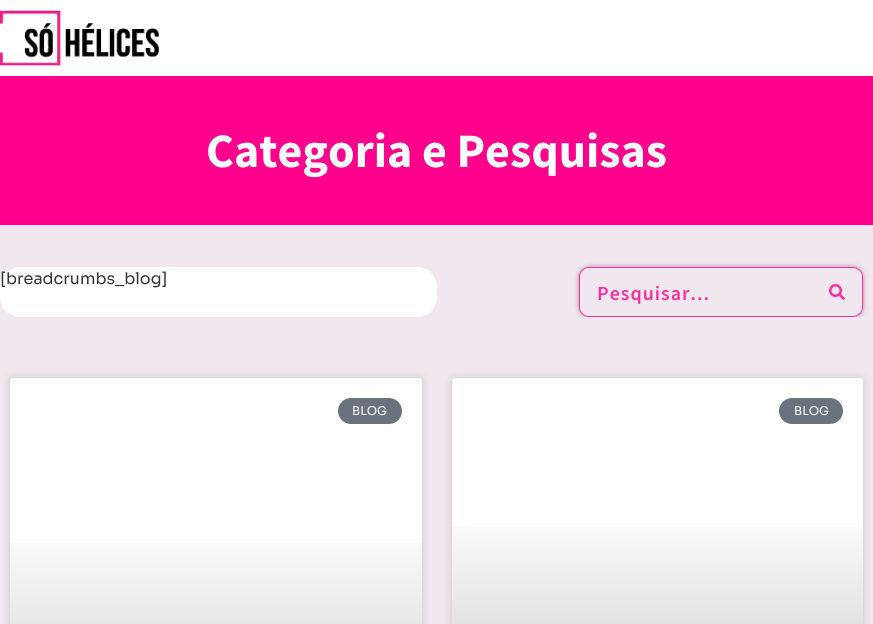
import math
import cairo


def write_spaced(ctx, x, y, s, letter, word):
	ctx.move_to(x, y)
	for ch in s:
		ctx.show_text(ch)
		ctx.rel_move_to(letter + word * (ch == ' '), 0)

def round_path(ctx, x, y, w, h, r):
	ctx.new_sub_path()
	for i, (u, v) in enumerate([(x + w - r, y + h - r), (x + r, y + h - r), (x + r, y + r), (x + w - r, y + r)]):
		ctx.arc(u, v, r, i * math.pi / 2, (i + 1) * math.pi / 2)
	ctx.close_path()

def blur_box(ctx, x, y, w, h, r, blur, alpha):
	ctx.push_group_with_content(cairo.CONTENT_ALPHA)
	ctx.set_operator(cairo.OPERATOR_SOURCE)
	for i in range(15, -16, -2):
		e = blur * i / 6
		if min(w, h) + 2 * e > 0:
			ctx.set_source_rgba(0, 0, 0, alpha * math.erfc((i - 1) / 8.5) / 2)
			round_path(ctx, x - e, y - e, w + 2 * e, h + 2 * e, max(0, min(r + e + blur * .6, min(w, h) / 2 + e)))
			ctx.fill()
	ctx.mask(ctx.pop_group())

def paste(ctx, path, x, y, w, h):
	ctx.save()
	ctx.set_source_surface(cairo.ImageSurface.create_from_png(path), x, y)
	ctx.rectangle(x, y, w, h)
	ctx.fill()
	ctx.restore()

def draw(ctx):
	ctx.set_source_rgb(0.941, 0.906, 0.937)
	ctx.paint()
	ctx.set_source_rgb(1, 1, 1)
	ctx.rectangle(0, 0, 873, 76)
	ctx.fill()
	paste(ctx, 'media/1.png', 0, 10, 159, 56)
	ctx.set_source_rgb(1, 0, 0.549)
	ctx.rectangle(0, 76, 873, 149)
	ctx.fill()
	ctx.select_font_face('Source Sans Pro', cairo.FONT_SLANT_NORMAL, cairo.FONT_WEIGHT_BOLD)
	ctx.set_font_size(48)
	ctx.set_source_rgb(1, 1, 1)
	ctx.move_to(206, 167)
	ctx.show_text('Categoria e Pesquisas')
	round_path(ctx, 0, 267, 437, 50, 20)
	ctx.fill()
	ctx.select_font_face('Sora')
	ctx.set_font_size(16)
	ctx.set_source_rgb(0.2, 0.2, 0.2)
	ctx.move_to(0, 284)
	ctx.show_text('[breadcrumbs_blog]')
	ctx.save()
	ctx.set_fill_rule(cairo.FILL_RULE_EVEN_ODD)
	ctx.new_path()
	ctx.move_to(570, 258)
	ctx.line_to(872, 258)
	ctx.line_to(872, 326)
	ctx.line_to(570, 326)
	ctx.close_path()
	ctx.move_to(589, 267)
	ctx.line_to(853, 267)
	ctx.curve_to(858.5, 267, 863, 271.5, 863, 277)
	ctx.line_to(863, 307)
	ctx.curve_to(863, 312.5, 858.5, 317, 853, 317)
	ctx.line_to(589, 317)
	ctx.curve_to(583.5, 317, 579, 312.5, 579, 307)
	ctx.line_to(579, 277)
	ctx.curve_to(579, 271.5, 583.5, 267, 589, 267)
	ctx.close_path()
	ctx.clip()
	ctx.set_source_rgb(0.188, 0.18, 0.188)
	blur_box(ctx, 579, 267, 284, 50, 10, 2.5, 0.5)
	ctx.restore()
	round_path(ctx, 579.5, 267.5, 283, 49, 9.5)
	ctx.set_source_rgb(0.988, 0.18, 0.627)
	ctx.set_line_width(1)
	ctx.stroke()
	ctx.select_font_face('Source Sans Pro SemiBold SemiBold')
	ctx.set_font_size(20)
	write_spaced(ctx, 597, 300, 'Pesquisar...', 1, 0)
	paste(ctx, 'media/2.png', 829, 284, 16, 16)
	ctx.set_source_rgb(0.941, 0.906, 0.937)
	ctx.rectangle(579, 317, 284, 5)
	ctx.fill()
	ctx.set_source_rgb(0, 0, 0)
	blur_box(ctx, 10, 378, 412, 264, 3, 5, 0.15)
	ctx.set_source_rgb(1, 1, 1)
	round_path(ctx, 10, 378, 412, 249, 3)
	ctx.fill()
	ctx.set_source_rgb(0.412, 0.447, 0.49)
	round_path(ctx, 338, 398, 64, 26, 13)
	ctx.fill()
	ctx.select_font_face('Sora')
	ctx.set_font_size(12)
	ctx.set_source_rgb(1, 1, 1)
	ctx.move_to(352, 415)
	ctx.show_text('BLOG')
	gradient = cairo.LinearGradient(216, 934, 216, 378)
	gradient.add_color_stop_rgba(0, 0, 0, 0, 0.35)
	gradient.add_color_stop_rgba(0.75, 0, 0, 0, 0)
	ctx.set_source(gradient)
	ctx.rectangle(10, 543, 412, 81)
	ctx.fill()
	ctx.set_source_rgb(0, 0, 0)
	blur_box(ctx, 452, 378, 411, 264, 3, 5, 0.15)
	ctx.set_source_rgb(1, 1, 1)
	round_path(ctx, 452, 378, 411, 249, 3)
	ctx.fill()
	ctx.set_source_rgb(0.412, 0.447, 0.49)
	round_path(ctx, 779, 398, 64, 26, 13)
	ctx.fill()
	ctx.set_source_rgb(1, 1, 1)
	ctx.move_to(794, 415)
	ctx.show_text('BLOG')
	gradient = cairo.LinearGradient(658, 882, 658, 378)
	gradient.add_color_stop_rgba(0, 0, 0, 0, 0.35)
	gradient.add_color_stop_rgba(0.75, 0, 0, 0, 0)
	ctx.set_source(gradient)
	ctx.rectangle(452, 527, 411, 97)
	ctx.fill()


surface = cairo.ImageSurface(cairo.FORMAT_RGB24, 873, 624)
ctx = cairo.Context(surface)
options = cairo.FontOptions()
options.set_hint_metrics(cairo.HINT_METRICS_OFF)
options.set_hint_style(cairo.HINT_STYLE_NONE)
ctx.set_font_options(options)
ctx.set_miter_limit(4)
draw(ctx)
surface.write_to_png('image.png')
